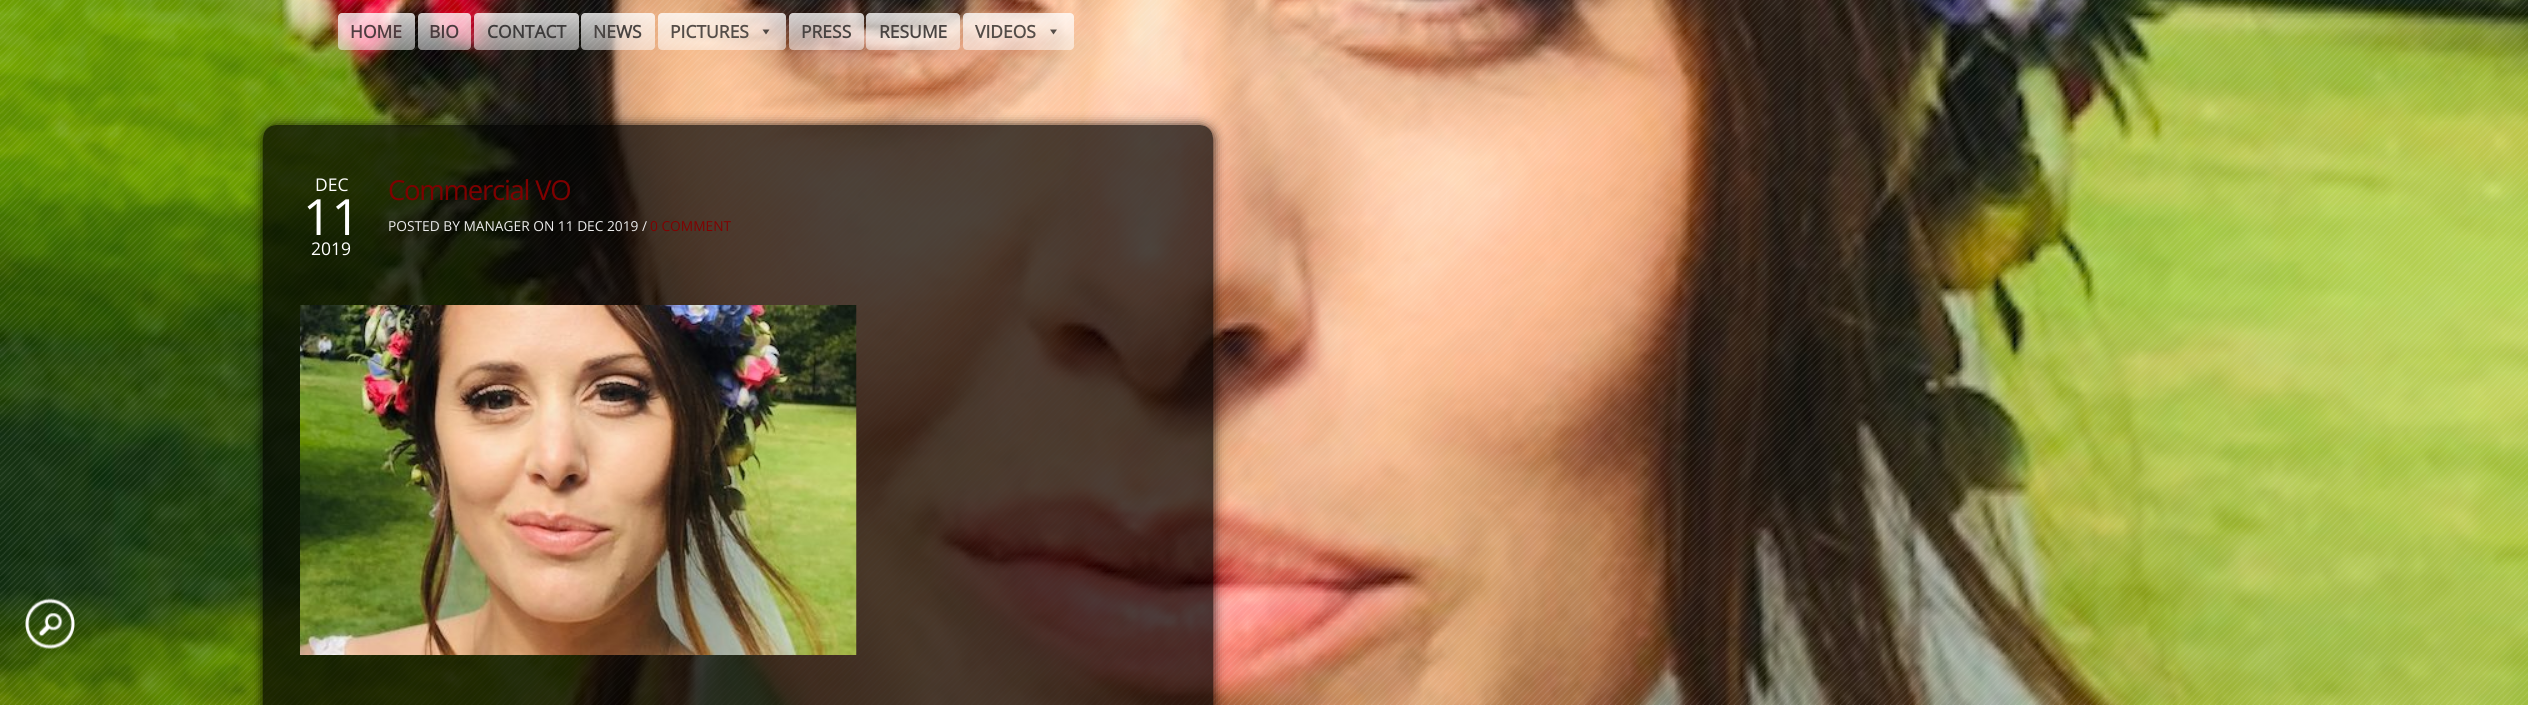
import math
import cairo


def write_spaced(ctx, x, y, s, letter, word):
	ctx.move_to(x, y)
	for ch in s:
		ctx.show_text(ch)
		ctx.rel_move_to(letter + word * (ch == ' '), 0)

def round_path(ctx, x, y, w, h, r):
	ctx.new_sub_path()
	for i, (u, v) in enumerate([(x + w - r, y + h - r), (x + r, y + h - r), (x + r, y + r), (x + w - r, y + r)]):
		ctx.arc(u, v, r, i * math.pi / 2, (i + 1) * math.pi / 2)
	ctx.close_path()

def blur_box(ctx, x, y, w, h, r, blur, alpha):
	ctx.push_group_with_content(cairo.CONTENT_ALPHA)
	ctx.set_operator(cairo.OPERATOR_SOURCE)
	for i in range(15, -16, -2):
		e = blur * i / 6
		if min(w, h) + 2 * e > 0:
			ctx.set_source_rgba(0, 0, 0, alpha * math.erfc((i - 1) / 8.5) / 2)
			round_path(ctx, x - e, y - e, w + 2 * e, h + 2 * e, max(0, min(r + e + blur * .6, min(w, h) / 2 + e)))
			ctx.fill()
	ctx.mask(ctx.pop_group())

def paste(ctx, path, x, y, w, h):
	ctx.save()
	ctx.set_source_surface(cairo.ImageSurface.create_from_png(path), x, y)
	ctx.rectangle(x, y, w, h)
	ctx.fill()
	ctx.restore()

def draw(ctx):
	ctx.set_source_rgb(1, 1, 1)
	ctx.paint()
	paste(ctx, 'media/1.png', 0, 0, 2528, 705)
	paste(ctx, 'media/2.png', 0, 0, 2528, 705)
	gradient = cairo.LinearGradient(376, 12, 376, 50)
	gradient.add_color_stop_rgba(0, 1, 1, 1, 0.8)
	gradient.add_color_stop_rgba(1, 1, 1, 1, 0.5)
	ctx.set_source(gradient)
	round_path(ctx, 338, 13, 77, 37, 4)
	ctx.fill()
	ctx.select_font_face('Open Sans', cairo.FONT_SLANT_NORMAL, cairo.FONT_WEIGHT_BOLD)
	ctx.set_font_size(17.5)
	ctx.set_source_rgb(0.31, 0.239, 0.251)
	ctx.move_to(350, 38)
	ctx.show_text('HOME')
	gradient = cairo.LinearGradient(444, 12, 444, 50)
	gradient.add_color_stop_rgba(0, 1, 1, 1, 0.8)
	gradient.add_color_stop_rgba(1, 1, 1, 1, 0.5)
	ctx.set_source(gradient)
	round_path(ctx, 418, 13, 53, 37, 4)
	ctx.fill()
	ctx.set_source_rgb(0.282, 0.231, 0.239)
	ctx.move_to(429, 38)
	ctx.show_text('BIO')
	gradient = cairo.LinearGradient(526, 12, 526, 50)
	gradient.add_color_stop_rgba(0, 1, 1, 1, 0.8)
	gradient.add_color_stop_rgba(1, 1, 1, 1, 0.5)
	ctx.set_source(gradient)
	round_path(ctx, 474, 13, 105, 37, 4)
	ctx.fill()
	ctx.set_source_rgb(0.239, 0.231, 0.231)
	ctx.move_to(487, 38)
	ctx.show_text('CONTACT')
	gradient = cairo.LinearGradient(618, 12, 618, 50)
	gradient.add_color_stop_rgba(0, 1, 1, 1, 0.8)
	gradient.add_color_stop_rgba(1, 1, 1, 1, 0.5)
	ctx.set_source(gradient)
	round_path(ctx, 581, 13, 74, 37, 4)
	ctx.fill()
	ctx.set_source_rgb(0.286, 0.267, 0.259)
	ctx.move_to(593, 38)
	ctx.show_text('NEWS')
	gradient = cairo.LinearGradient(722, 12, 722, 50)
	gradient.add_color_stop_rgba(0, 1, 1, 1, 0.8)
	gradient.add_color_stop_rgba(1, 1, 1, 1, 0.5)
	ctx.set_source(gradient)
	round_path(ctx, 658, 13, 128, 37, 4)
	ctx.fill()
	ctx.set_source_rgb(0.329, 0.302, 0.282)
	ctx.move_to(670, 38)
	ctx.show_text('PICTURES')
	ctx.set_source_rgba(0, 0, 0, 0.66)
	ctx.new_path()
	ctx.move_to(769.5, 29.5)
	ctx.line_to(766, 34.5)
	ctx.line_to(762.5, 29.5)
	ctx.close_path()
	ctx.fill()
	gradient = cairo.LinearGradient(826, 12, 826, 50)
	gradient.add_color_stop_rgba(0, 1, 1, 1, 0.8)
	gradient.add_color_stop_rgba(1, 1, 1, 1, 0.5)
	ctx.set_source(gradient)
	round_path(ctx, 789, 13, 75, 37, 4)
	ctx.fill()
	ctx.set_source_rgb(0.286, 0.267, 0.259)
	ctx.move_to(801, 38)
	ctx.show_text('PRESS')
	gradient = cairo.LinearGradient(913, 12, 913, 50)
	gradient.add_color_stop_rgba(0, 1, 1, 1, 0.8)
	gradient.add_color_stop_rgba(1, 1, 1, 1, 0.5)
	ctx.set_source(gradient)
	round_path(ctx, 866, 13, 94, 37, 4)
	ctx.fill()
	ctx.set_source_rgb(0.286, 0.267, 0.259)
	ctx.move_to(879, 38)
	ctx.show_text('RESUME')
	gradient = cairo.LinearGradient(1018, 12, 1018, 50)
	gradient.add_color_stop_rgba(0, 1, 1, 1, 0.8)
	gradient.add_color_stop_rgba(1, 1, 1, 1, 0.5)
	ctx.set_source(gradient)
	round_path(ctx, 963, 13, 111, 37, 4)
	ctx.fill()
	ctx.set_source_rgb(0.329, 0.302, 0.282)
	ctx.move_to(975, 38)
	ctx.show_text('VIDEOS')
	ctx.set_source_rgba(0, 0, 0, 0.66)
	ctx.new_path()
	ctx.move_to(1057, 29.5)
	ctx.line_to(1053.5, 34.5)
	ctx.line_to(1050, 29.5)
	ctx.close_path()
	ctx.fill()
	ctx.save()
	ctx.set_fill_rule(cairo.FILL_RULE_EVEN_ODD)
	ctx.new_path()
	ctx.move_to(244, 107)
	ctx.line_to(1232, 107)
	ctx.line_to(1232, 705)
	ctx.line_to(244, 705)
	ctx.close_path()
	ctx.move_to(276, 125)
	ctx.line_to(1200, 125)
	ctx.curve_to(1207, 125, 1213, 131, 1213, 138)
	ctx.line_to(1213, 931)
	ctx.curve_to(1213, 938, 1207, 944, 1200, 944)
	ctx.line_to(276, 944)
	ctx.curve_to(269, 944, 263, 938, 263, 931)
	ctx.line_to(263, 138)
	ctx.curve_to(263, 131, 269, 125, 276, 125)
	ctx.close_path()
	ctx.clip()
	ctx.set_source_rgb(0, 0, 0)
	blur_box(ctx, 263, 126, 950, 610, 13, 6, 0.9)
	ctx.restore()
	ctx.set_source_rgba(0, 0, 0, 0.7)
	round_path(ctx, 263, 125, 950, 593, 13)
	ctx.fill()
	ctx.select_font_face('Open Sans')
	ctx.set_source_rgb(1, 1, 1)
	ctx.move_to(315, 191)
	ctx.show_text('DEC')
	ctx.set_font_size(50)
	ctx.move_to(303, 235)
	ctx.show_text('11')
	ctx.set_font_size(17.5)
	ctx.move_to(311, 255)
	ctx.show_text('2019')
	ctx.set_font_size(27.5)
	ctx.set_source_rgb(0.502, 0, 0)
	write_spaced(ctx, 388, 200, 'Commercial VO', -1.25, 0)
	ctx.set_font_size(13.75)
	ctx.set_source_rgb(0.922, 0.922, 0.922)
	ctx.move_to(388, 231)
	ctx.show_text('POSTED BY MANAGER ON 11 DEC 2019 /')
	ctx.set_source_rgb(0.502, 0, 0)
	ctx.move_to(650, 231)
	ctx.show_text('0 COMMENT')
	paste(ctx, 'media/3.png', 300, 305, 557, 350)
	paste(ctx, 'media/4.png', 25, 598, 50, 51)


surface = cairo.ImageSurface(cairo.FORMAT_RGB24, 2528, 705)
ctx = cairo.Context(surface)
options = cairo.FontOptions()
options.set_hint_metrics(cairo.HINT_METRICS_OFF)
options.set_hint_style(cairo.HINT_STYLE_NONE)
ctx.set_font_options(options)
ctx.set_miter_limit(4)
draw(ctx)
surface.write_to_png('image.png')
